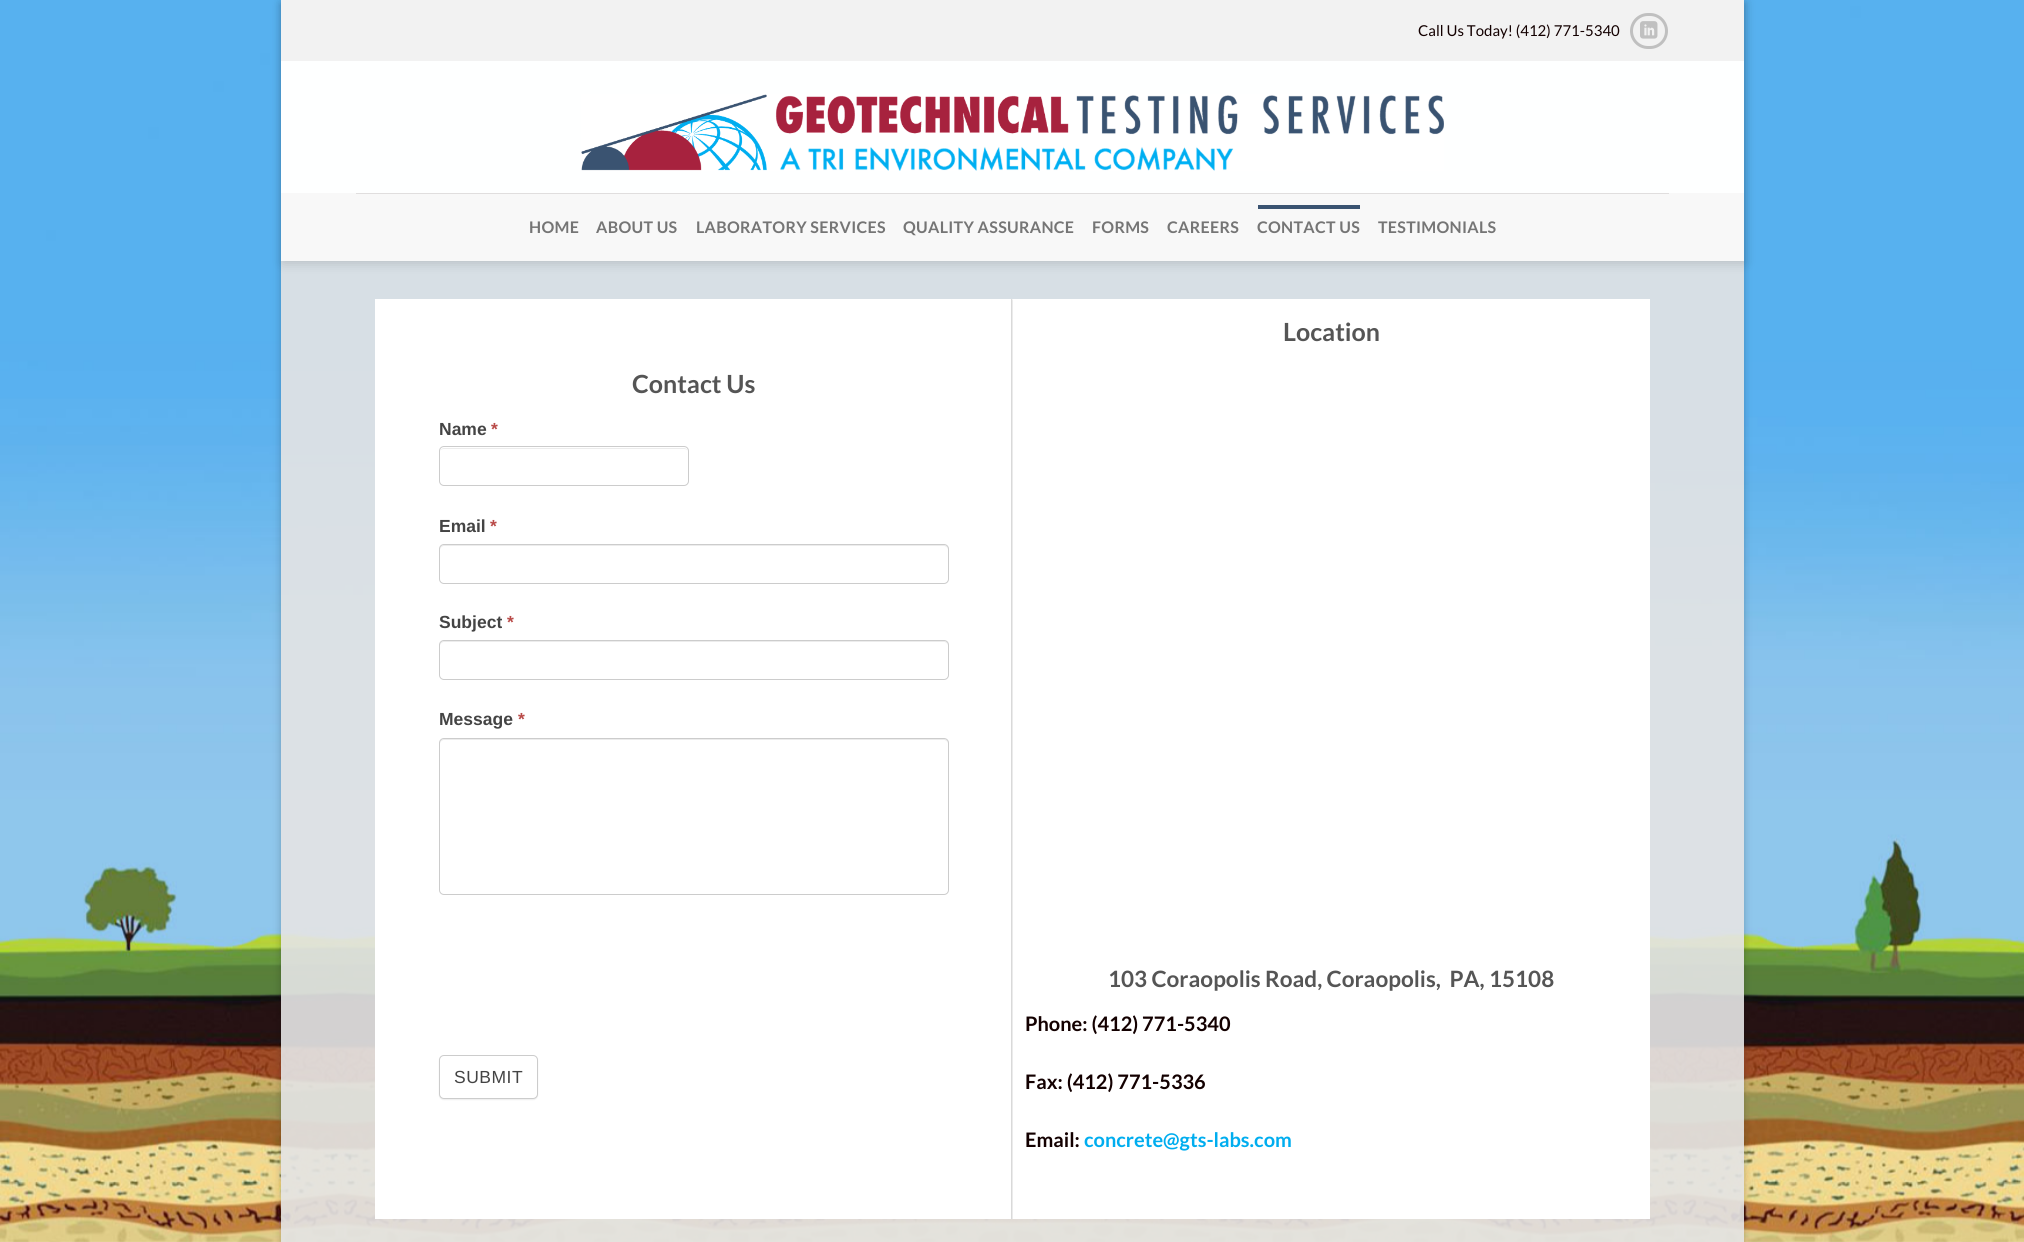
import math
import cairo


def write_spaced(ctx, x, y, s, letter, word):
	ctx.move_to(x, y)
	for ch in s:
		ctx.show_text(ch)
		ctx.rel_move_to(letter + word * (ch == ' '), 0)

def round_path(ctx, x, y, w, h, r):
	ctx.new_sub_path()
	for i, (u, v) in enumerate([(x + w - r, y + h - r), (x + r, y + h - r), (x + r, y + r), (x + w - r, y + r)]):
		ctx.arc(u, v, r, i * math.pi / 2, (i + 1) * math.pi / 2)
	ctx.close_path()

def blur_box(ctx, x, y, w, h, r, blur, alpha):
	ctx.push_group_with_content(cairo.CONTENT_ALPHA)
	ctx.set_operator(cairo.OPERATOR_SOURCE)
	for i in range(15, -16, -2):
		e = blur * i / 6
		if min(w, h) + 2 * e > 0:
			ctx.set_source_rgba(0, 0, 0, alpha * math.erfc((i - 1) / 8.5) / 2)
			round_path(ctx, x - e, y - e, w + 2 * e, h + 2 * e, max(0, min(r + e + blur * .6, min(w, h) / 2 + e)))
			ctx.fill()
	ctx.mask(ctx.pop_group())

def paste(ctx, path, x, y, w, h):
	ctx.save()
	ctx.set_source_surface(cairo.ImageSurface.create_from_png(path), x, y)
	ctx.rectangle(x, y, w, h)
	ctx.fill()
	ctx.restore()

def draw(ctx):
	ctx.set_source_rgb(1, 1, 1)
	ctx.paint()
	paste(ctx, 'media/1.png', 0, 0, 2024, 1242)
	ctx.save()
	ctx.set_fill_rule(cairo.FILL_RULE_EVEN_ODD)
	ctx.new_path()
	ctx.move_to(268, 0)
	ctx.line_to(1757, 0)
	ctx.line_to(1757, 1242)
	ctx.line_to(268, 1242)
	ctx.close_path()
	ctx.move_to(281, 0)
	ctx.line_to(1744, 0)
	ctx.line_to(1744, 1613)
	ctx.line_to(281, 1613)
	ctx.close_path()
	ctx.clip()
	ctx.set_source_rgb(0, 0, 0)
	blur_box(ctx, 281, 4, 1463, 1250, 0, 4, 0.23)
	ctx.restore()
	ctx.set_source_rgba(0.898, 0.898, 0.898, 0.7)
	ctx.rectangle(281, 261, 1463, 981)
	ctx.fill()
	ctx.rectangle(281, 261, 1463, 981)
	ctx.fill()
	ctx.set_source_rgb(0, 0, 0)
	blur_box(ctx, 283, 1, 1462, 262, 0, 6, 0.15)
	ctx.set_source_rgb(0.949, 0.949, 0.949)
	ctx.rectangle(281, 0, 1463, 61)
	ctx.fill()
	ctx.select_font_face('Lato')
	ctx.set_font_size(15)
	ctx.set_source_rgb(0.078, 0, 0)
	ctx.move_to(1418, 36)
	ctx.show_text('Call Us Today! (412) 771-5340')
	round_path(ctx, 1631.5, 14.5, 35, 33, 16.5)
	ctx.set_source_rgb(0.753, 0.753, 0.753)
	ctx.set_line_width(3)
	ctx.stroke()
	paste(ctx, 'media/2.png', 1640, 21, 18, 18)
	ctx.set_source_rgb(0.996, 1, 1)
	ctx.rectangle(281, 61, 1463, 132)
	ctx.fill()
	paste(ctx, 'media/3.png', 581, 94, 863, 77)
	ctx.set_source_rgb(0.969, 0.969, 0.969)
	ctx.rectangle(281, 193, 1463, 68)
	ctx.fill()
	ctx.set_source_rgb(0.878, 0.871, 0.871)
	ctx.rectangle(356, 193, 1313, 1)
	ctx.fill()
	ctx.select_font_face('Lato', cairo.FONT_SLANT_NORMAL, cairo.FONT_WEIGHT_BOLD)
	ctx.set_font_size(16)
	ctx.set_source_rgb(0.459, 0.459, 0.459)
	for x, y, s in [
		(529, 233, 'HOME'),
		(596, 233, 'ABOUT US'),
		(696, 233, 'LABORATORY SERVICES'),
		(903, 233, 'QUALITY ASSURANCE'),
		(1092, 233, 'FORMS'),
		(1167, 233, 'CAREERS'),
	]:
		write_spaced(ctx, x, y, s, 0.3, 0)
	ctx.set_source_rgb(0.227, 0.325, 0.443)
	ctx.rectangle(1258, 205, 102, 4)
	ctx.fill()
	ctx.set_source_rgb(0.459, 0.459, 0.459)
	write_spaced(ctx, 1257, 233, 'CONTACT US', 0.3, 0)
	write_spaced(ctx, 1378, 233, 'TESTIMONIALS', 0.3, 0)
	ctx.set_source_rgb(1, 1, 1)
	ctx.rectangle(375, 299, 638, 920)
	ctx.fill()
	ctx.set_font_size(25)
	ctx.set_source_rgb(0.333, 0.333, 0.333)
	ctx.move_to(632, 393)
	ctx.show_text('Contact Us')
	ctx.select_font_face('Liberation Sans', cairo.FONT_SLANT_NORMAL, cairo.FONT_WEIGHT_BOLD)
	ctx.set_font_size(17.5)
	ctx.set_source_rgb(0.267, 0.267, 0.267)
	ctx.move_to(439, 435)
	ctx.show_text('Name')
	ctx.set_source_rgb(0.725, 0.29, 0.282)
	ctx.move_to(491, 435)
	ctx.show_text('*')
	ctx.set_source_rgb(0.925, 0.925, 0.925)
	ctx.new_path()
	ctx.move_to(444, 449)
	ctx.line_to(684, 449)
	ctx.curve_to(686, 449, 688, 450, 688, 452)
	ctx.curve_to(688, 450, 686, 448, 684, 448)
	ctx.line_to(444, 448)
	ctx.curve_to(442, 448, 440, 450, 440, 452)
	ctx.curve_to(440, 450, 442, 449, 444, 449)
	ctx.close_path()
	ctx.fill()
	round_path(ctx, 439.5, 446.5, 249, 39, 4.5)
	ctx.set_source_rgb(0.8, 0.8, 0.8)
	ctx.set_line_width(1)
	ctx.stroke()
	ctx.set_source_rgb(0.267, 0.267, 0.267)
	ctx.move_to(439, 532)
	ctx.show_text('Email')
	ctx.set_source_rgb(0.725, 0.29, 0.282)
	ctx.move_to(490, 532)
	ctx.show_text('*')
	ctx.set_source_rgb(0.925, 0.925, 0.925)
	ctx.new_path()
	ctx.move_to(444, 546)
	ctx.line_to(944, 546)
	ctx.curve_to(946, 546, 948, 548, 948, 550)
	ctx.line_to(948, 549)
	ctx.curve_to(948, 547, 946, 545, 944, 545)
	ctx.line_to(444, 545)
	ctx.curve_to(442, 545, 440, 547, 440, 549)
	ctx.line_to(440, 550)
	ctx.curve_to(440, 548, 442, 546, 444, 546)
	ctx.close_path()
	ctx.fill()
	round_path(ctx, 439.5, 544.5, 509, 39, 4.5)
	ctx.set_source_rgb(0.8, 0.8, 0.8)
	ctx.stroke()
	ctx.set_source_rgb(0.267, 0.267, 0.267)
	ctx.move_to(439, 628)
	ctx.show_text('Subject')
	ctx.set_source_rgb(0.725, 0.29, 0.282)
	ctx.move_to(507, 628)
	ctx.show_text('*')
	ctx.set_source_rgb(0.925, 0.925, 0.925)
	ctx.new_path()
	ctx.move_to(444, 642)
	ctx.line_to(944, 642)
	ctx.curve_to(946, 642, 948, 644, 948, 646)
	ctx.line_to(948, 645)
	ctx.curve_to(948, 643, 946, 641, 944, 641)
	ctx.line_to(444, 641)
	ctx.curve_to(442, 641, 440, 643, 440, 645)
	ctx.line_to(440, 646)
	ctx.curve_to(440, 644, 442, 642, 444, 642)
	ctx.close_path()
	ctx.fill()
	round_path(ctx, 439.5, 640.5, 509, 39, 4.5)
	ctx.set_source_rgb(0.8, 0.8, 0.8)
	ctx.stroke()
	ctx.set_source_rgb(0.267, 0.267, 0.267)
	ctx.move_to(439, 725)
	ctx.show_text('Message')
	ctx.set_source_rgb(0.725, 0.29, 0.282)
	ctx.move_to(518, 725)
	ctx.show_text('*')
	ctx.set_source_rgb(0.925, 0.925, 0.925)
	ctx.new_path()
	ctx.move_to(444, 740)
	ctx.line_to(944, 740)
	ctx.curve_to(946, 740, 948, 742, 948, 744)
	ctx.line_to(948, 743)
	ctx.curve_to(948, 741, 946, 739, 944, 739)
	ctx.line_to(444, 739)
	ctx.curve_to(442, 739, 440, 741, 440, 743)
	ctx.line_to(440, 744)
	ctx.curve_to(440, 742, 442, 740, 444, 740)
	ctx.close_path()
	ctx.fill()
	round_path(ctx, 439.5, 738.5, 509, 156, 4.5)
	ctx.set_source_rgb(0.8, 0.8, 0.8)
	ctx.stroke()
	ctx.set_source_rgb(0.933, 0.933, 0.933)
	blur_box(ctx, 439, 1056, 99, 44, 5, 0.5, 1)
	ctx.set_source_rgb(1, 1, 1)
	round_path(ctx, 439.5, 1055.5, 98, 43, 4.5)
	ctx.fill_preserve()
	ctx.set_source_rgb(0.8, 0.8, 0.8)
	ctx.stroke()
	ctx.select_font_face('Liberation Sans')
	ctx.set_source_rgb(0.267, 0.267, 0.267)
	write_spaced(ctx, 454, 1083, 'SUBMIT', 0.5, 0)
	ctx.set_source_rgb(0.867, 0.867, 0.867)
	ctx.rectangle(1011, 299, 1, 920)
	ctx.fill()
	ctx.save()
	ctx.rectangle(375, 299, 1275, 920)
	ctx.clip()
	ctx.set_source_rgb(0, 0, 0)
	blur_box(ctx, 1013, 300, 637, 920, 0, 1, 0.24)
	ctx.restore()
	ctx.set_source_rgb(1, 1, 1)
	ctx.rectangle(1013, 299, 637, 920)
	ctx.fill()
	ctx.select_font_face('Lato', cairo.FONT_SLANT_NORMAL, cairo.FONT_WEIGHT_BOLD)
	ctx.set_font_size(25)
	ctx.set_source_rgb(0.333, 0.333, 0.333)
	ctx.move_to(1283, 341)
	ctx.show_text('Location')
	ctx.set_font_size(22.5)
	ctx.move_to(1108, 987)
	ctx.show_text('103 Coraopolis Road, Coraopolis,  PA, 15108')
	ctx.set_font_size(20)
	ctx.set_source_rgb(0.078, 0, 0)
	for x, y, s in [
		(1025, 1031, 'Phone: (412) 771-5340'),
		(1025, 1089, 'Fax: (412) 771-5336'),
		(1025, 1147, 'Email:'),
	]:
		ctx.move_to(x, y)
		ctx.show_text(s)
	ctx.set_source_rgb(0, 0.678, 0.937)
	ctx.move_to(1084, 1147)
	ctx.show_text('concrete@gts-labs.com')


surface = cairo.ImageSurface(cairo.FORMAT_RGB24, 2024, 1242)
ctx = cairo.Context(surface)
options = cairo.FontOptions()
options.set_hint_metrics(cairo.HINT_METRICS_OFF)
options.set_hint_style(cairo.HINT_STYLE_NONE)
ctx.set_font_options(options)
ctx.set_miter_limit(4)
draw(ctx)
surface.write_to_png('image.png')
